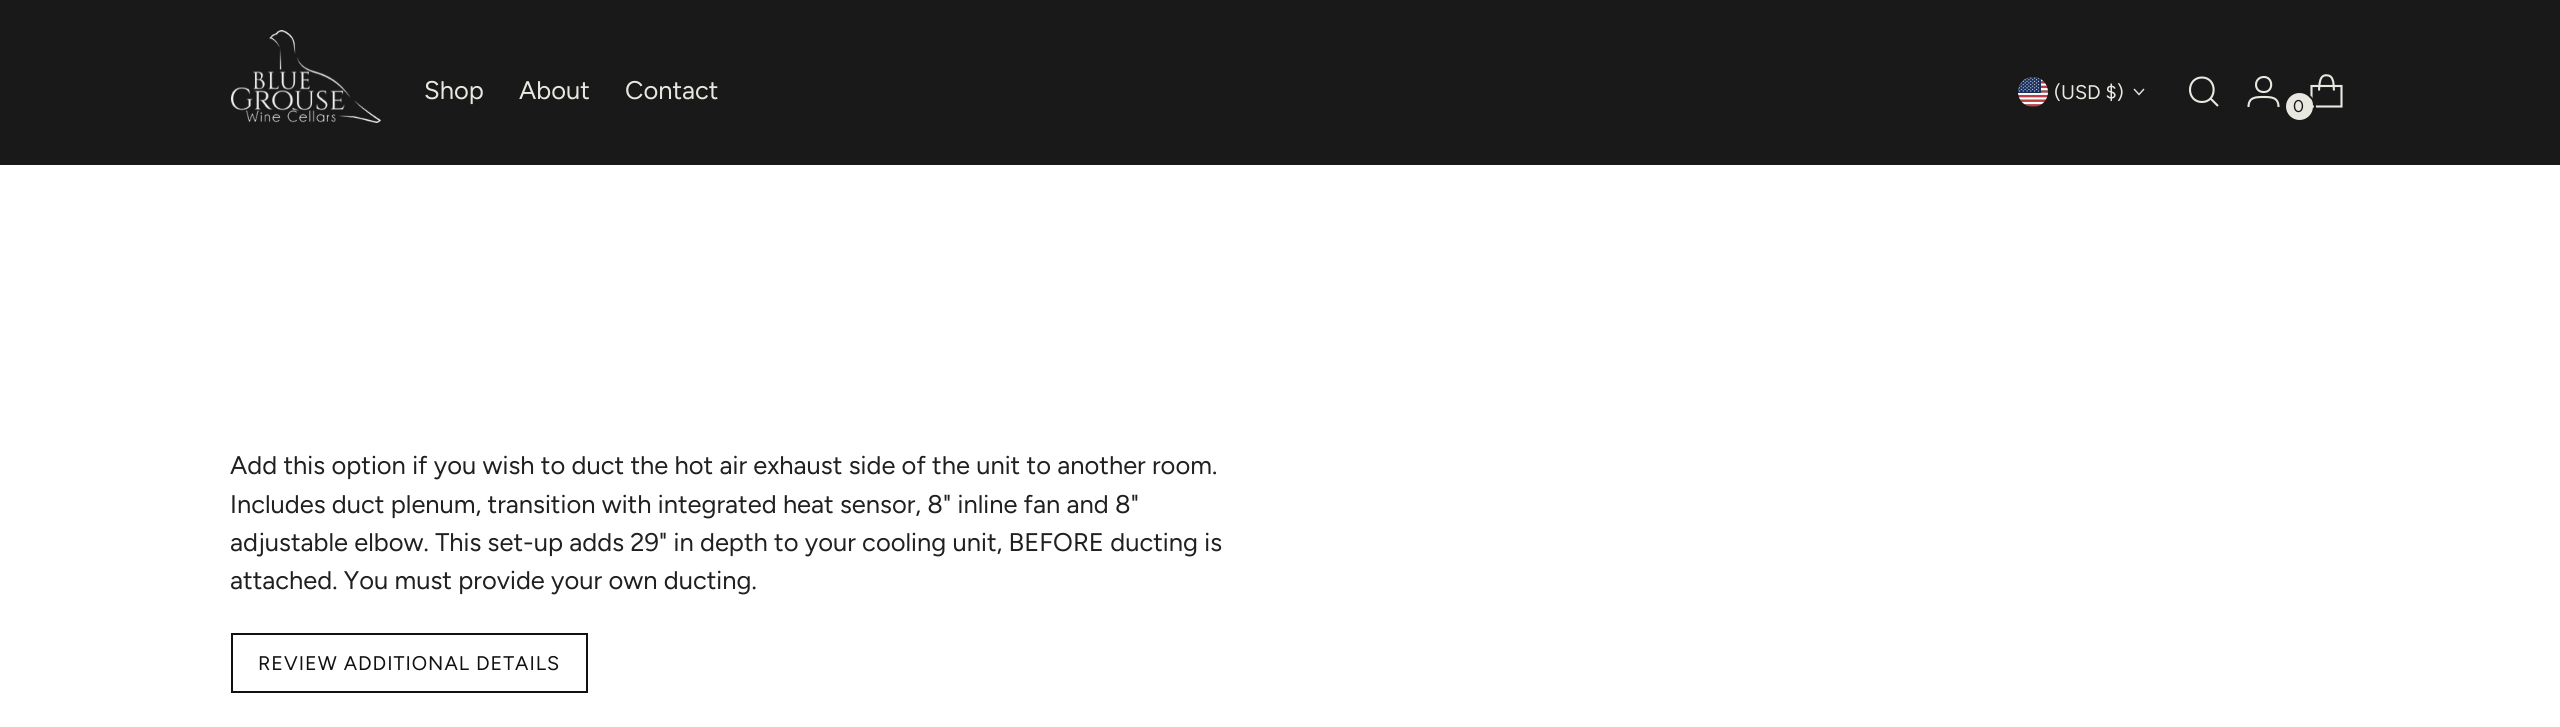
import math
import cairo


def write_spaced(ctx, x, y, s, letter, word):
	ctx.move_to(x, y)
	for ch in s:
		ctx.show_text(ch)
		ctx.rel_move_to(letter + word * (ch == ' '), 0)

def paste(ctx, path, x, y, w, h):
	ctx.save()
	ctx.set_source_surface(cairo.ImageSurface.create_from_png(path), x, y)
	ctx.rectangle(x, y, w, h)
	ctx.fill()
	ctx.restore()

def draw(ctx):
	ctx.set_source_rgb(1, 1, 1)
	ctx.paint()
	ctx.set_source_rgb(0.098, 0.098, 0.098)
	ctx.rectangle(0, 0, 2560, 165)
	ctx.fill()
	paste(ctx, 'media/1.png', 231, 30, 150, 93)
	ctx.select_font_face('Figtree')
	ctx.set_font_size(25.5)
	ctx.set_source_rgb(0.91, 0.91, 0.882)
	for x, y, s in [
		(424, 99, 'Shop'),
		(519, 99, 'About'),
		(625, 99, 'Contact'),
	]:
		ctx.move_to(x, y)
		ctx.show_text(s)
	paste(ctx, 'media/2.png', 2018, 77, 30, 30)
	ctx.set_font_size(19.75)
	ctx.move_to(2054, 99)
	ctx.show_text('(USD $)')
	ctx.new_path()
	ctx.move_to(2134, 89)
	ctx.line_to(2139, 94.5)
	ctx.line_to(2144, 89)
	ctx.set_line_width(1.4)
	ctx.stroke()
	ctx.new_path()
	ctx.move_to(2202, 102)
	ctx.curve_to(2217.5, 102, 2217.5, 77.5, 2202, 77.5)
	ctx.curve_to(2186, 77.5, 2186, 102, 2202, 102)
	ctx.close_path()
	ctx.set_line_width(2.1)
	ctx.set_line_cap(cairo.LINE_CAP_ROUND)
	ctx.stroke()
	ctx.new_path()
	ctx.move_to(2210.5, 98.5)
	ctx.line_to(2218, 106)
	ctx.set_line_cap(cairo.LINE_CAP_BUTT)
	ctx.stroke()
	ctx.new_path()
	ctx.move_to(2263.5, 92)
	ctx.curve_to(2274, 92.5, 2273.5, 76.5, 2263.5, 77)
	ctx.curve_to(2253.5, 77.5, 2253.5, 92, 2263.5, 92)
	ctx.close_path()
	ctx.move_to(2248.5, 107)
	ctx.curve_to(2248.5, 97, 2256, 97, 2263.5, 97)
	ctx.curve_to(2271, 97, 2278.5, 97, 2278.5, 107)
	ctx.stroke()
	ctx.new_path()
	ctx.move_to(2334, 90.5)
	ctx.curve_to(2333.5, 87, 2334, 83, 2332.5, 79.5)
	ctx.curve_to(2332, 77.5, 2330, 75.5, 2328, 75.5)
	ctx.curve_to(2319, 73.5, 2319.5, 85, 2319, 90.5)
	ctx.set_line_join(cairo.LINE_JOIN_BEVEL)
	ctx.stroke()
	ctx.new_path()
	ctx.move_to(2341.5, 106.5)
	ctx.line_to(2341.5, 86)
	ctx.line_to(2311.5, 86)
	ctx.line_to(2311.5, 106.5)
	ctx.close_path()
	ctx.set_line_join(cairo.LINE_JOIN_MITER)
	ctx.stroke()
	ctx.arc(2300.5, 107.5, 14.5, 0, 2 * math.pi)
	ctx.set_source_rgb(0.098, 0.098, 0.098)
	ctx.set_line_width(2)
	ctx.stroke()
	ctx.set_source_rgb(0.91, 0.91, 0.882)
	ctx.arc(2299.5, 106.5, 13.5, 0, 2 * math.pi)
	ctx.fill()
	ctx.set_font_size(17)
	ctx.set_source_rgb(0.098, 0.098, 0.098)
	ctx.move_to(2293, 112)
	ctx.show_text('0')
	ctx.set_font_size(25.5)
	ctx.set_source_rgb(0.125, 0.125, 0.125)
	for x, y, s in [
		(230, 474, 'Add this option if you wish to duct the hot air exhaust side of the unit to another room.'),
		(230, 513, 'Includes duct plenum, transition with integrated heat sensor, 8" inline fan and 8"'),
		(230, 551, 'adjustable elbow. This set-up adds 29" in depth to your cooling unit, BEFORE ducting is'),
		(230, 589, 'attached. You must provide your own ducting.'),
	]:
		ctx.move_to(x, y)
		ctx.show_text(s)
	ctx.rectangle(232, 634, 355, 58)
	ctx.set_source_rgb(0.067, 0.067, 0.067)
	ctx.stroke()
	ctx.set_font_size(19.75)
	write_spaced(ctx, 258, 670, 'REVIEW ADDITIONAL DETAILS', 1, 0)


surface = cairo.ImageSurface(cairo.FORMAT_RGB24, 2560, 727)
ctx = cairo.Context(surface)
options = cairo.FontOptions()
options.set_hint_metrics(cairo.HINT_METRICS_OFF)
options.set_hint_style(cairo.HINT_STYLE_NONE)
ctx.set_font_options(options)
ctx.set_miter_limit(4)
draw(ctx)
surface.write_to_png('image.png')
